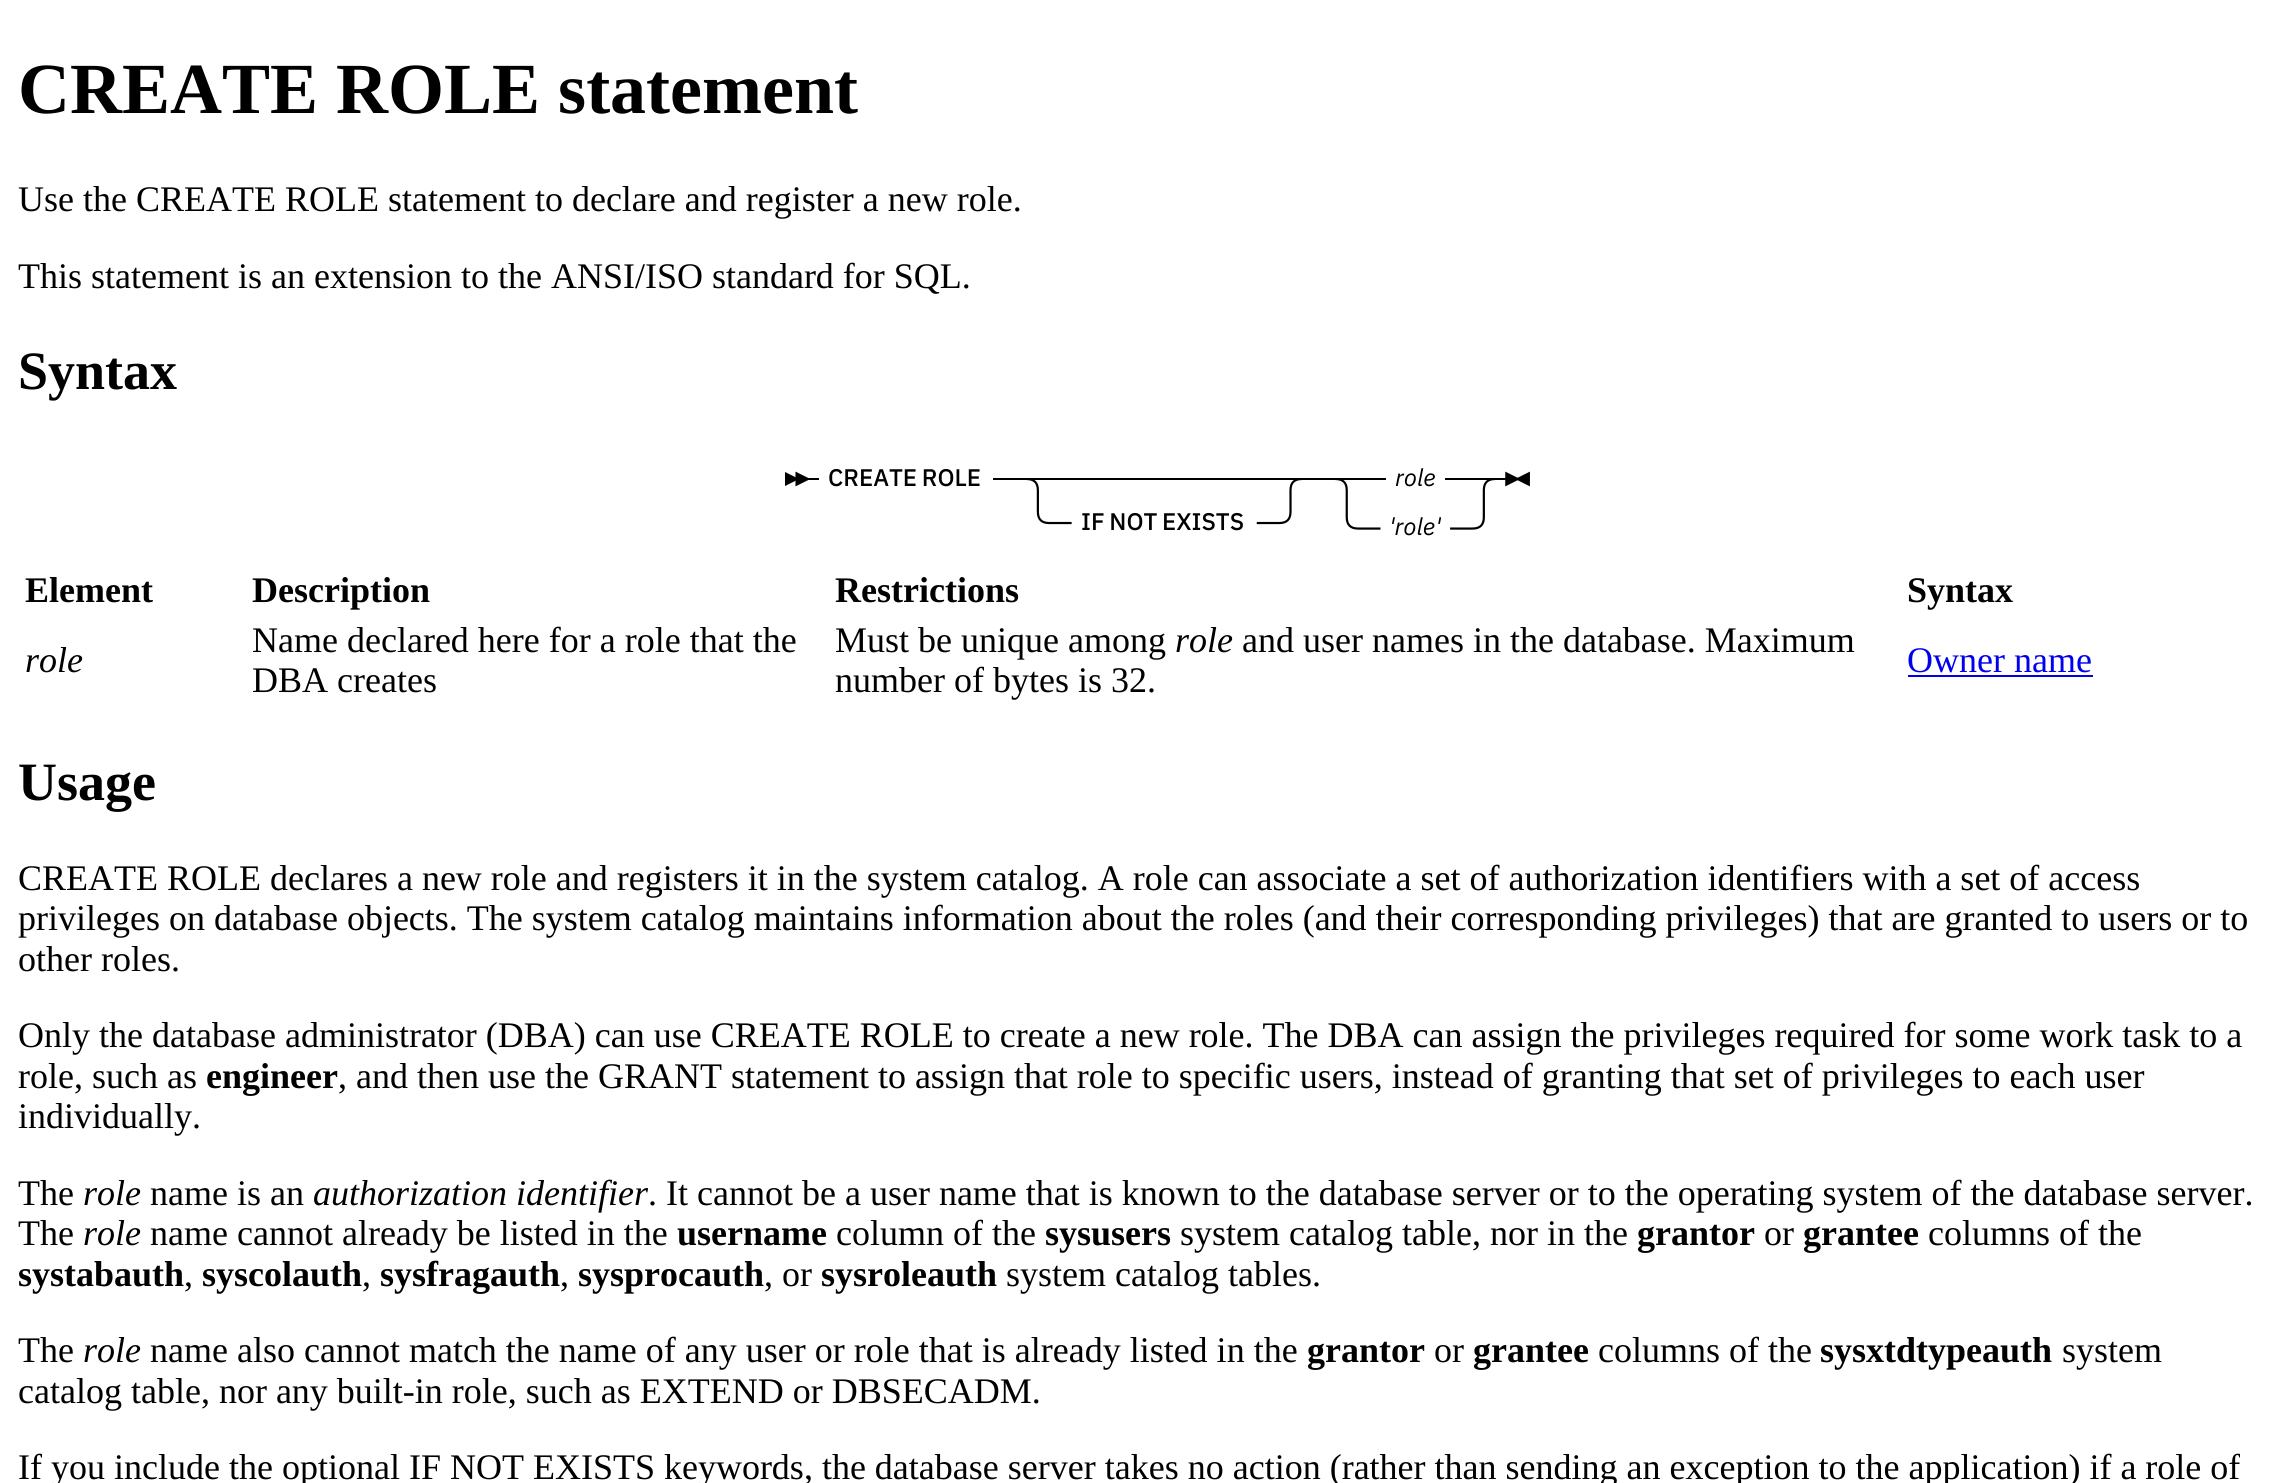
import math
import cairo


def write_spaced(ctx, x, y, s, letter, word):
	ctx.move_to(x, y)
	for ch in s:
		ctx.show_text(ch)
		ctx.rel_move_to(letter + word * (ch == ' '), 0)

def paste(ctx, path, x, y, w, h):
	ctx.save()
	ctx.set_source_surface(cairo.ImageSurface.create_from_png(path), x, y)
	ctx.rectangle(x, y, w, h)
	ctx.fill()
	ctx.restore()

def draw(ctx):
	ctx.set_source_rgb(1, 1, 1)
	ctx.paint()
	ctx.select_font_face('Liberation Serif', cairo.FONT_SLANT_NORMAL, cairo.FONT_WEIGHT_BOLD)
	ctx.set_font_size(72)
	ctx.set_source_rgb(0, 0, 0)
	ctx.move_to(18, 113)
	ctx.show_text('CREATE ROLE statement')
	ctx.select_font_face('Liberation Serif')
	ctx.set_font_size(36)
	ctx.move_to(18, 211)
	ctx.show_text('Use the CREATE ROLE statement to declare and register a new role.')
	ctx.move_to(18, 288)
	ctx.show_text('This statement is an extension to the ANSI/ISO standard for SQL.')
	ctx.select_font_face('Liberation Serif', cairo.FONT_SLANT_NORMAL, cairo.FONT_WEIGHT_BOLD)
	ctx.set_font_size(54)
	ctx.move_to(18, 389)
	ctx.show_text('Syntax')
	ctx.select_font_face('IBM Plex Sans Medium')
	ctx.set_font_size(24)
	write_spaced(ctx, 828, 486, 'CREATE ROLE', 0, -1)
	write_spaced(ctx, 1081, 530, 'IF NOT EXISTS', 0, -1)
	paste(ctx, 'media/1.png', 785, 471, 745, 59)
	ctx.select_font_face('IBM Plex Sans', cairo.FONT_SLANT_ITALIC)
	ctx.move_to(1395, 486)
	ctx.show_text('role')
	ctx.move_to(1389, 535)
	ctx.show_text('\'role\'')
	ctx.select_font_face('Liberation Serif', cairo.FONT_SLANT_NORMAL, cairo.FONT_WEIGHT_BOLD)
	ctx.set_font_size(36)
	for x, y, s in [
		(25, 602, 'Element'),
		(252, 602, 'Description'),
		(835, 602, 'Restrictions'),
		(1907, 602, 'Syntax'),
	]:
		ctx.move_to(x, y)
		ctx.show_text(s)
	ctx.select_font_face('Liberation Serif', cairo.FONT_SLANT_ITALIC)
	ctx.move_to(25, 672)
	ctx.show_text('role')
	ctx.select_font_face('Liberation Serif')
	for x, y, s in [
		(252, 652, 'Name declared here for a role that the'),
		(252, 692, 'DBA creates'),
		(835, 652, 'Must be unique among'),
	]:
		ctx.move_to(x, y)
		ctx.show_text(s)
	ctx.select_font_face('Liberation Serif', cairo.FONT_SLANT_ITALIC)
	ctx.move_to(1175, 652)
	ctx.show_text('role')
	ctx.select_font_face('Liberation Serif')
	ctx.move_to(1242, 652)
	ctx.show_text('and user names in the database. Maximum')
	ctx.move_to(835, 692)
	ctx.show_text('number of bytes is 32.')
	ctx.set_source_rgb(0, 0, 0.933)
	ctx.move_to(1907, 672)
	ctx.show_text('Owner name')
	ctx.rectangle(1908, 675, 185, 2)
	ctx.fill()
	ctx.select_font_face('Liberation Serif', cairo.FONT_SLANT_NORMAL, cairo.FONT_WEIGHT_BOLD)
	ctx.set_font_size(54)
	ctx.set_source_rgb(0, 0, 0)
	ctx.move_to(18, 800)
	ctx.show_text('Usage')
	ctx.select_font_face('Liberation Serif')
	ctx.set_font_size(36)
	for x, y, s in [
		(18, 890, 'CREATE ROLE declares a new role and registers it in the system catalog. A role can associate a set of authorization identifiers with a set of access'),
		(18, 930, 'privileges on database objects. The system catalog maintains information about the roles (and their corresponding privileges) that are granted to users or to'),
		(18, 971, 'other roles.'),
		(18, 1047, 'Only the database administrator (DBA) can use CREATE ROLE to create a new role. The DBA can assign the privileges required for some work task to a'),
		(18, 1088, 'role, such as'),
	]:
		ctx.move_to(x, y)
		ctx.show_text(s)
	ctx.select_font_face('Liberation Serif', cairo.FONT_SLANT_NORMAL, cairo.FONT_WEIGHT_BOLD)
	ctx.move_to(206, 1088)
	ctx.show_text('engineer')
	ctx.select_font_face('Liberation Serif')
	for x, y, s in [
		(338, 1088, ', and then use the GRANT statement to assign that role to specific users, instead of granting that set of privileges to each user'),
		(18, 1128, 'individually.'),
		(18, 1205, 'The'),
	]:
		ctx.move_to(x, y)
		ctx.show_text(s)
	ctx.select_font_face('Liberation Serif', cairo.FONT_SLANT_ITALIC)
	ctx.move_to(83, 1205)
	ctx.show_text('role')
	ctx.select_font_face('Liberation Serif')
	ctx.move_to(150, 1205)
	ctx.show_text('name is an')
	ctx.select_font_face('Liberation Serif', cairo.FONT_SLANT_ITALIC)
	ctx.move_to(313, 1205)
	ctx.show_text('authorization identifier')
	ctx.select_font_face('Liberation Serif')
	ctx.move_to(648, 1205)
	ctx.show_text('. It cannot be a user name that is known to the database server or to the operating system of the database server.')
	ctx.move_to(18, 1245)
	ctx.show_text('The')
	ctx.select_font_face('Liberation Serif', cairo.FONT_SLANT_ITALIC)
	ctx.move_to(83, 1245)
	ctx.show_text('role')
	ctx.select_font_face('Liberation Serif')
	ctx.move_to(150, 1245)
	ctx.show_text('name cannot already be listed in the')
	ctx.select_font_face('Liberation Serif', cairo.FONT_SLANT_NORMAL, cairo.FONT_WEIGHT_BOLD)
	ctx.move_to(677, 1245)
	ctx.show_text('username')
	ctx.select_font_face('Liberation Serif')
	ctx.move_to(836, 1245)
	ctx.show_text('column of the')
	ctx.select_font_face('Liberation Serif', cairo.FONT_SLANT_NORMAL, cairo.FONT_WEIGHT_BOLD)
	ctx.move_to(1045, 1245)
	ctx.show_text('sysusers')
	ctx.select_font_face('Liberation Serif')
	ctx.move_to(1180, 1245)
	ctx.show_text('system catalog table, nor in the')
	ctx.select_font_face('Liberation Serif', cairo.FONT_SLANT_NORMAL, cairo.FONT_WEIGHT_BOLD)
	ctx.move_to(1637, 1245)
	ctx.show_text('grantor')
	ctx.select_font_face('Liberation Serif')
	ctx.move_to(1764, 1245)
	ctx.show_text('or')
	ctx.select_font_face('Liberation Serif', cairo.FONT_SLANT_NORMAL, cairo.FONT_WEIGHT_BOLD)
	ctx.move_to(1803, 1245)
	ctx.show_text('grantee')
	ctx.select_font_face('Liberation Serif')
	ctx.move_to(1928, 1245)
	ctx.show_text('columns of the')
	ctx.select_font_face('Liberation Serif', cairo.FONT_SLANT_NORMAL, cairo.FONT_WEIGHT_BOLD)
	ctx.move_to(18, 1286)
	ctx.show_text('systabauth')
	ctx.select_font_face('Liberation Serif')
	ctx.move_to(184, 1286)
	ctx.show_text(',')
	ctx.select_font_face('Liberation Serif', cairo.FONT_SLANT_NORMAL, cairo.FONT_WEIGHT_BOLD)
	ctx.move_to(202, 1286)
	ctx.show_text('syscolauth')
	ctx.select_font_face('Liberation Serif')
	ctx.move_to(362, 1286)
	ctx.show_text(',')
	ctx.select_font_face('Liberation Serif', cairo.FONT_SLANT_NORMAL, cairo.FONT_WEIGHT_BOLD)
	ctx.move_to(380, 1286)
	ctx.show_text('sysfragauth')
	ctx.select_font_face('Liberation Serif')
	ctx.move_to(560, 1286)
	ctx.show_text(',')
	ctx.select_font_face('Liberation Serif', cairo.FONT_SLANT_NORMAL, cairo.FONT_WEIGHT_BOLD)
	ctx.move_to(578, 1286)
	ctx.show_text('sysprocauth')
	ctx.select_font_face('Liberation Serif')
	ctx.move_to(764, 1286)
	ctx.show_text(', or')
	ctx.select_font_face('Liberation Serif', cairo.FONT_SLANT_NORMAL, cairo.FONT_WEIGHT_BOLD)
	ctx.move_to(821, 1286)
	ctx.show_text('sysroleauth')
	ctx.select_font_face('Liberation Serif')
	ctx.move_to(1006, 1286)
	ctx.show_text('system catalog tables.')
	ctx.move_to(18, 1362)
	ctx.show_text('The')
	ctx.select_font_face('Liberation Serif', cairo.FONT_SLANT_ITALIC)
	ctx.move_to(83, 1362)
	ctx.show_text('role')
	ctx.select_font_face('Liberation Serif')
	ctx.move_to(150, 1362)
	ctx.show_text('name also cannot match the name of any user or role that is already listed in the')
	ctx.select_font_face('Liberation Serif', cairo.FONT_SLANT_NORMAL, cairo.FONT_WEIGHT_BOLD)
	ctx.move_to(1307, 1362)
	ctx.show_text('grantor')
	ctx.select_font_face('Liberation Serif')
	ctx.move_to(1434, 1362)
	ctx.show_text('or')
	ctx.select_font_face('Liberation Serif', cairo.FONT_SLANT_NORMAL, cairo.FONT_WEIGHT_BOLD)
	ctx.move_to(1473, 1362)
	ctx.show_text('grantee')
	ctx.select_font_face('Liberation Serif')
	ctx.move_to(1598, 1362)
	ctx.show_text('columns of the')
	ctx.select_font_face('Liberation Serif', cairo.FONT_SLANT_NORMAL, cairo.FONT_WEIGHT_BOLD)
	ctx.move_to(1820, 1362)
	ctx.show_text('sysxtdtypeauth')
	ctx.select_font_face('Liberation Serif')
	for x, y, s in [
		(2062, 1362, 'system'),
		(18, 1403, 'catalog table, nor any built-in role, such as EXTEND or DBSECADM.'),
		(18, 1479, 'If you include the optional IF NOT EXISTS keywords, the database server takes no action (rather than sending an exception to the application) if a role of'),
	]:
		ctx.move_to(x, y)
		ctx.show_text(s)


surface = cairo.ImageSurface(cairo.FORMAT_RGB24, 2282, 1483)
ctx = cairo.Context(surface)
options = cairo.FontOptions()
options.set_hint_metrics(cairo.HINT_METRICS_OFF)
options.set_hint_style(cairo.HINT_STYLE_NONE)
ctx.set_font_options(options)
ctx.set_miter_limit(4)
draw(ctx)
surface.write_to_png('image.png')
